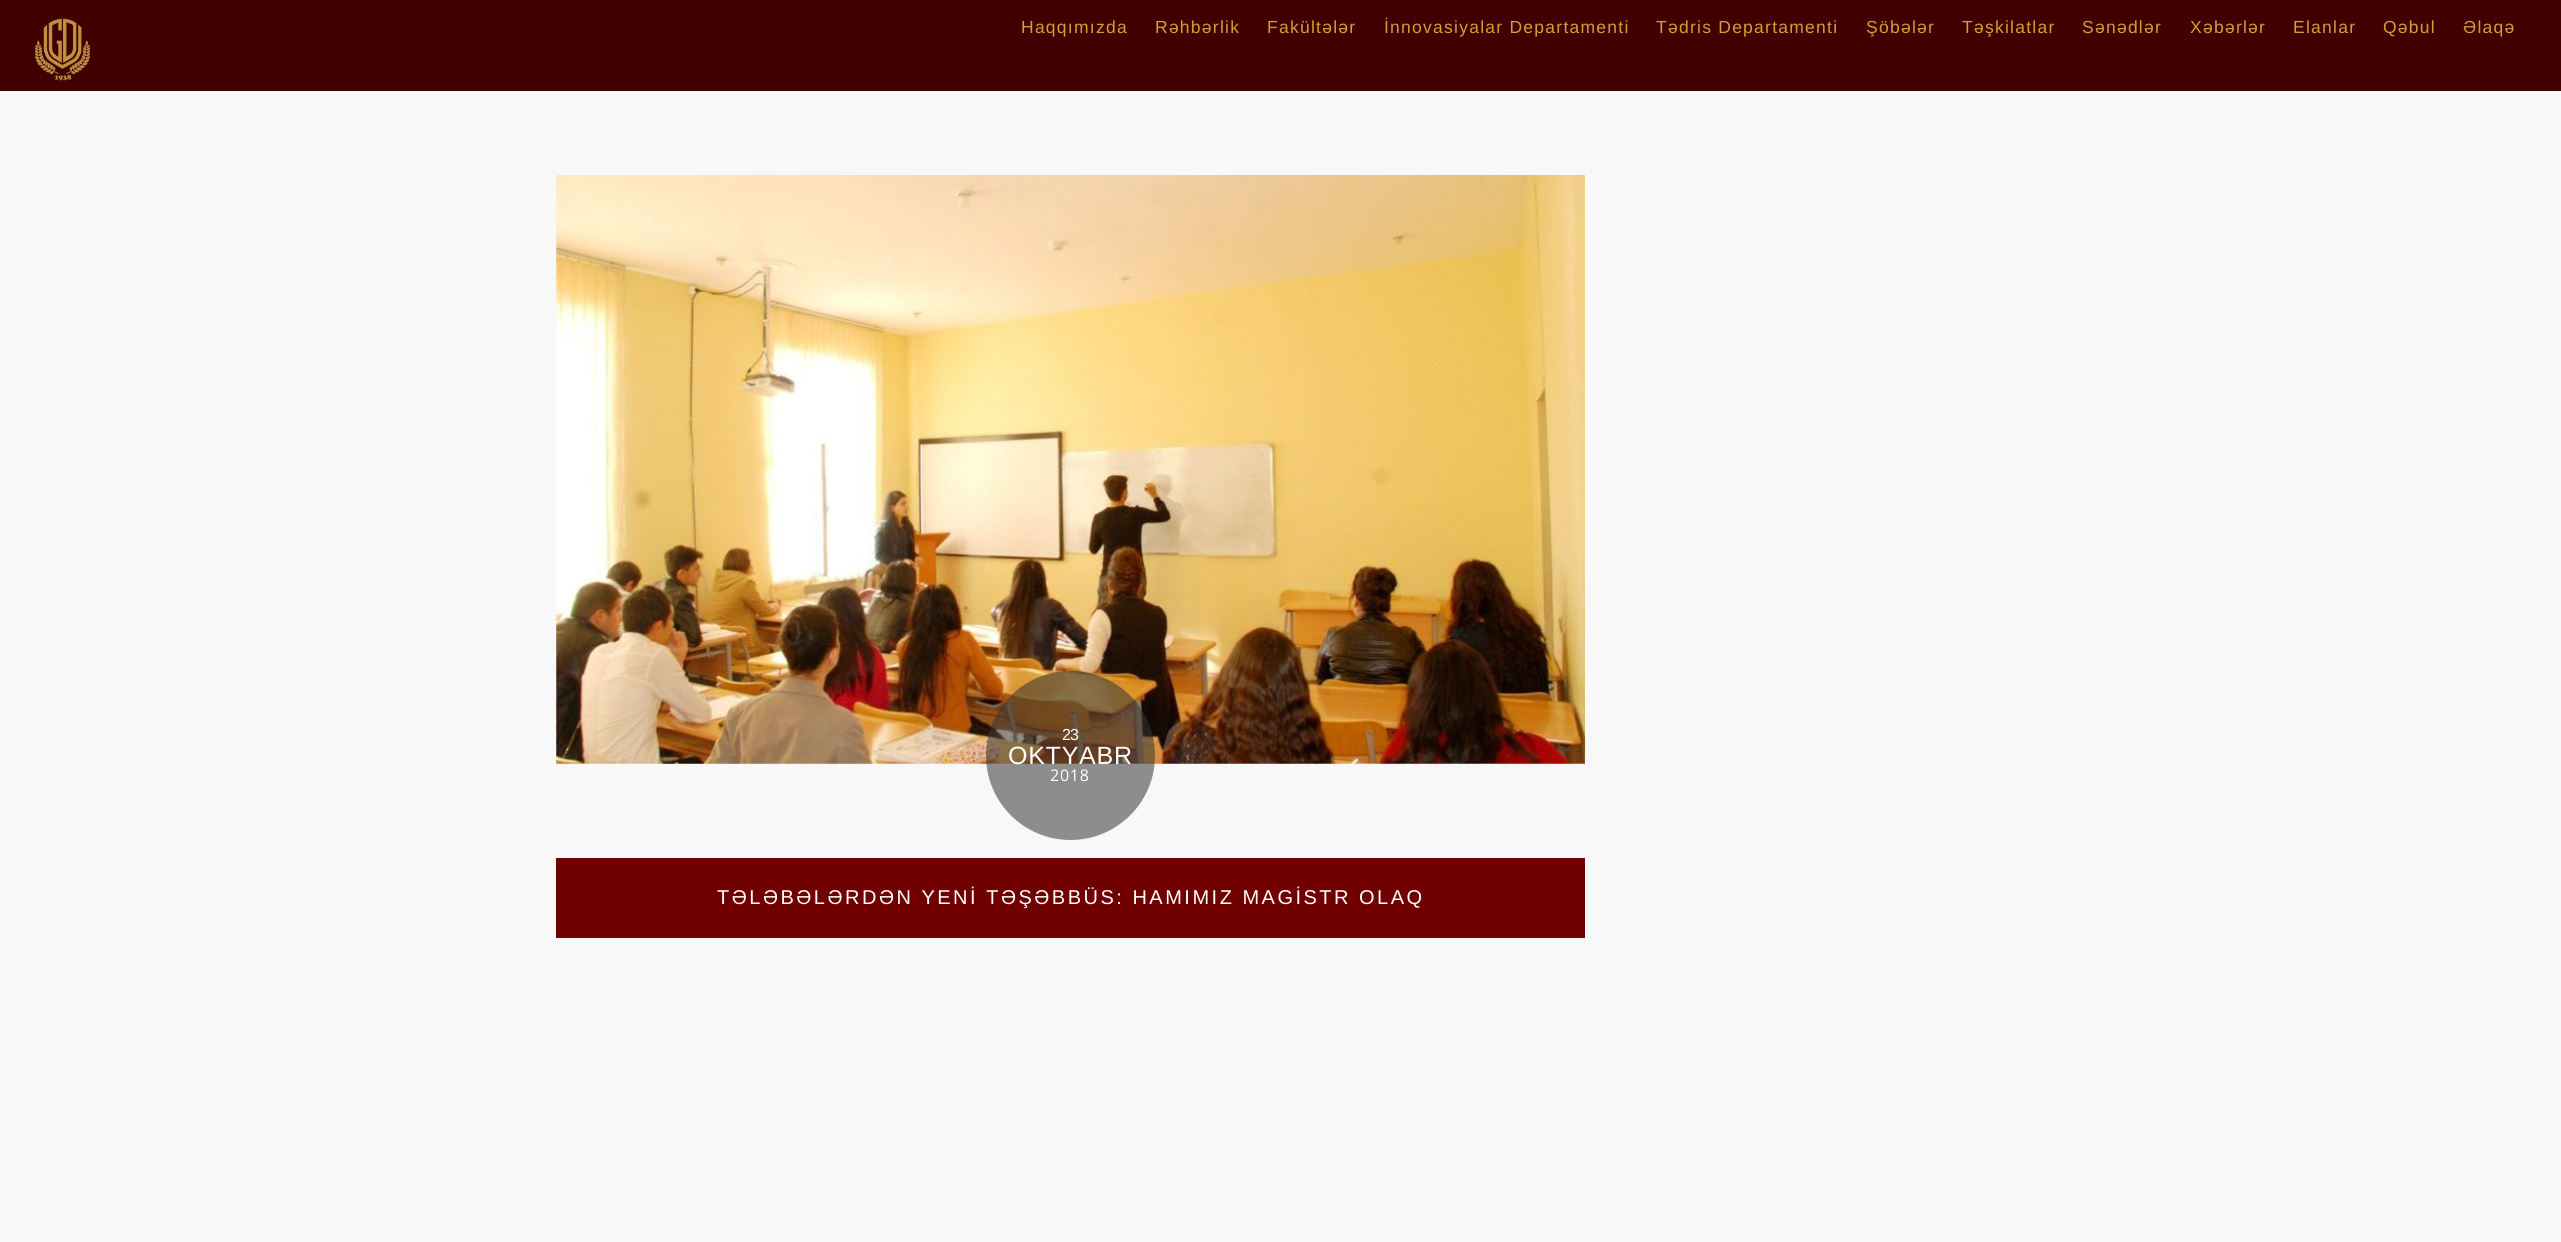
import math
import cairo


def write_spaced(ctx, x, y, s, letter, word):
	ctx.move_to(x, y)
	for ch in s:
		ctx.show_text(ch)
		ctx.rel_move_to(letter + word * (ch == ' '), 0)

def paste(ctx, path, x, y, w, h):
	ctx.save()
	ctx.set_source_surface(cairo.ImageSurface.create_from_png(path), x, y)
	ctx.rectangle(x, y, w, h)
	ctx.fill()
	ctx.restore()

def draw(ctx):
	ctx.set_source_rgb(0.969, 0.969, 0.969)
	ctx.paint()
	ctx.set_source_rgb(0.251, 0, 0)
	ctx.rectangle(0, 0, 2561, 90)
	ctx.fill()
	ctx.set_source_rgb(0.227, 0, 0)
	ctx.rectangle(0, 90, 2561, 1)
	ctx.fill()
	paste(ctx, 'media/1.png', 35, 18, 55, 63)
	ctx.select_font_face('Liberation Sans')
	ctx.set_font_size(17.5)
	ctx.set_source_rgb(0.816, 0.627, 0.2)
	for x, y, s in [
		(1021, 33, 'Haqqımızda'),
		(1155, 33, 'Rəhbərlik'),
		(1267, 33, 'Fakültələr'),
		(1384, 33, 'İnnovasiyalar Departamenti'),
		(1656, 33, 'Tədris Departamenti'),
		(1866, 33, 'Şöbələr'),
		(1962, 33, 'Təşkilatlar'),
		(2082, 33, 'Sənədlər'),
		(2190, 33, 'Xəbərlər'),
		(2293, 33, 'Elanlar'),
		(2383, 33, 'Qəbul'),
		(2463, 33, 'Əlaqə'),
	]:
		write_spaced(ctx, x, y, s, 1.25, 0)
	paste(ctx, 'media/2.png', 556, 175, 1029, 589)
	ctx.set_source_rgba(0.212, 0.212, 0.212, 0.55)
	ctx.arc(1070.5, 755.5, 84.5, 0, 2 * math.pi)
	ctx.fill()
	ctx.set_font_size(16)
	ctx.set_source_rgb(1, 1, 1)
	write_spaced(ctx, 1062, 740, '23', -1, 0)
	ctx.set_font_size(25)
	write_spaced(ctx, 1008, 764, 'OKTYABR', 0.75, 0)
	ctx.select_font_face('Open Sans')
	ctx.set_font_size(16)
	write_spaced(ctx, 1050, 781, '2018', 0.75, 0)
	ctx.set_source_rgb(0.439, 0, 0)
	ctx.rectangle(556, 858, 1029, 80)
	ctx.fill()
	ctx.select_font_face('Liberation Sans')
	ctx.set_font_size(20)
	ctx.set_source_rgb(1, 1, 1)
	write_spaced(ctx, 717, 904, 'TƏLƏBƏLƏRDƏN YENİ TƏŞƏBBÜS: HAMIMIZ MAGİSTR OLAQ', 2.5, 0)


surface = cairo.ImageSurface(cairo.FORMAT_RGB24, 2561, 1242)
ctx = cairo.Context(surface)
options = cairo.FontOptions()
options.set_hint_metrics(cairo.HINT_METRICS_OFF)
options.set_hint_style(cairo.HINT_STYLE_NONE)
ctx.set_font_options(options)
ctx.set_miter_limit(4)
draw(ctx)
surface.write_to_png('image.png')
